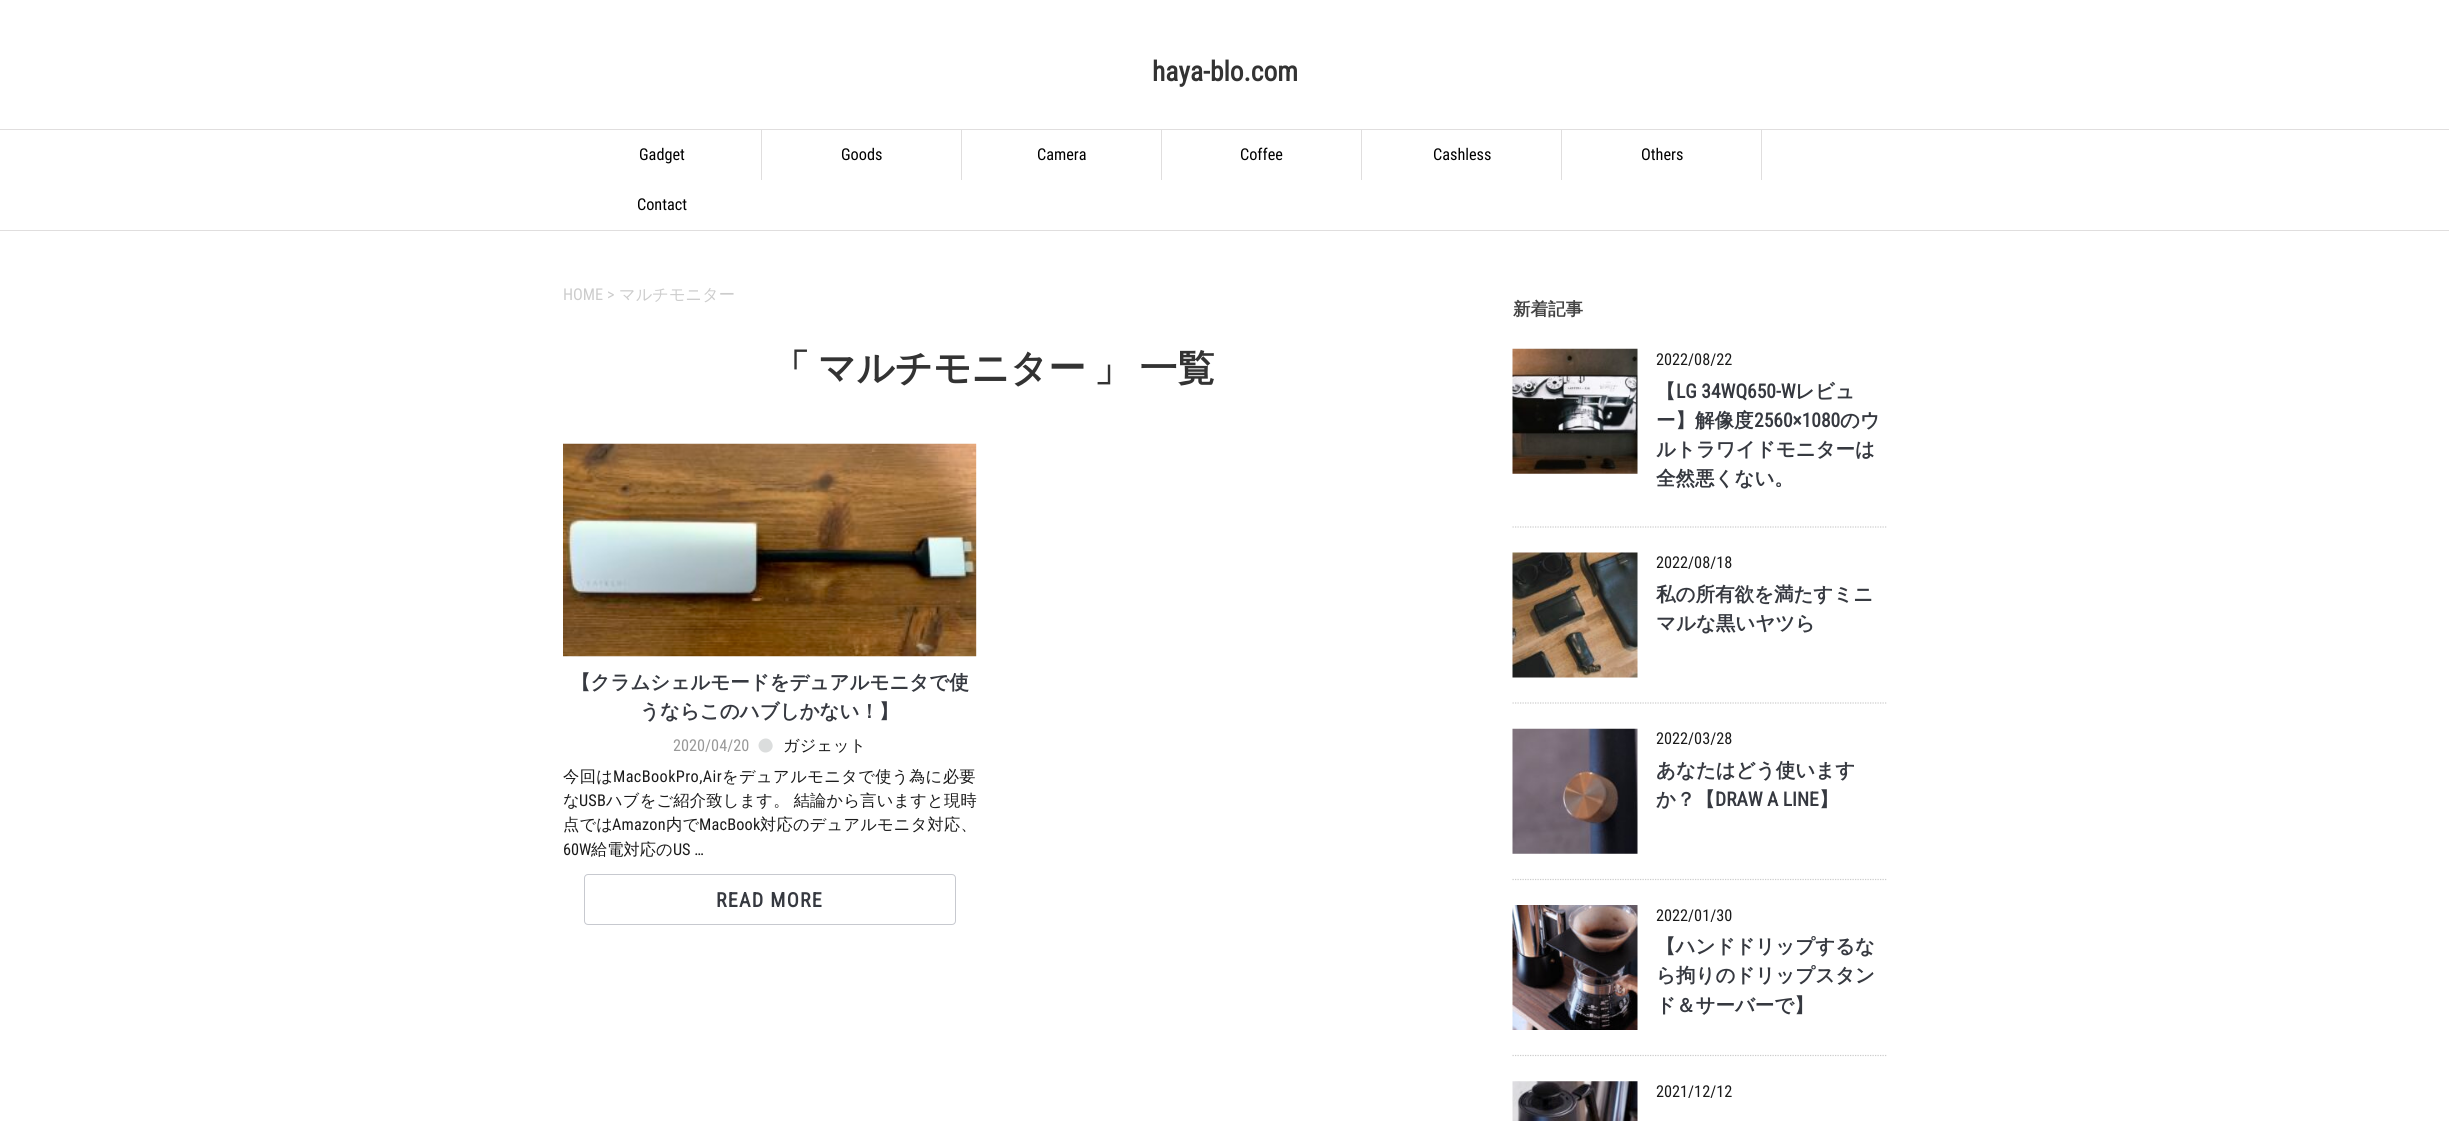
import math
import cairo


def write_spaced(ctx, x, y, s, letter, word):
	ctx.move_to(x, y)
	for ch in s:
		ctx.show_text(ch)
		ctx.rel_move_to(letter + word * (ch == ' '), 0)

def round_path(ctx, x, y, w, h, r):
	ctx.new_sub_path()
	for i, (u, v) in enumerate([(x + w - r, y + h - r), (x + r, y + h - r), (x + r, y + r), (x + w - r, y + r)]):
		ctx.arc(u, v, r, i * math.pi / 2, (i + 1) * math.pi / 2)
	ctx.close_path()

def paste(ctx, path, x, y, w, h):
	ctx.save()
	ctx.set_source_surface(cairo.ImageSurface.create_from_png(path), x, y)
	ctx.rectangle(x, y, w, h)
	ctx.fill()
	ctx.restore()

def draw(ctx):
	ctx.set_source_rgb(1, 1, 1)
	ctx.paint()
	ctx.select_font_face('Roboto Condensed', cairo.FONT_SLANT_NORMAL, cairo.FONT_WEIGHT_BOLD)
	ctx.set_font_size(27.5)
	ctx.set_source_rgb(0.2, 0.2, 0.2)
	ctx.move_to(1152, 81)
	ctx.show_text('haya-blo.com')
	ctx.set_source_rgb(0.878, 0.871, 0.871)
	ctx.rectangle(0, 129, 2449, 1)
	ctx.rectangle(0, 230, 2449, 1)
	ctx.rectangle(761, 130, 1, 50)
	ctx.fill()
	ctx.select_font_face('Roboto Condensed')
	ctx.set_font_size(16.25)
	ctx.set_source_rgb(0, 0, 0)
	ctx.move_to(639, 160)
	ctx.show_text('Gadget')
	ctx.set_source_rgb(0.878, 0.871, 0.871)
	ctx.rectangle(961, 130, 1, 50)
	ctx.fill()
	ctx.set_source_rgb(0, 0, 0)
	ctx.move_to(841, 160)
	ctx.show_text('Goods')
	ctx.set_source_rgb(0.878, 0.871, 0.871)
	ctx.rectangle(1161, 130, 1, 50)
	ctx.fill()
	ctx.set_source_rgb(0, 0, 0)
	ctx.move_to(1037, 160)
	ctx.show_text('Camera')
	ctx.set_source_rgb(0.878, 0.871, 0.871)
	ctx.rectangle(1361, 130, 1, 50)
	ctx.fill()
	ctx.set_source_rgb(0, 0, 0)
	ctx.move_to(1240, 160)
	ctx.show_text('Coffee')
	ctx.set_source_rgb(0.878, 0.871, 0.871)
	ctx.rectangle(1561, 130, 1, 50)
	ctx.fill()
	ctx.set_source_rgb(0, 0, 0)
	ctx.move_to(1433, 160)
	ctx.show_text('Cashless')
	ctx.set_source_rgb(0.878, 0.871, 0.871)
	ctx.rectangle(1761, 130, 1, 50)
	ctx.fill()
	ctx.set_source_rgb(0, 0, 0)
	ctx.move_to(1641, 160)
	ctx.show_text('Others')
	ctx.move_to(637, 210)
	ctx.show_text('Contact')
	ctx.set_source_rgb(0.8, 0.8, 0.8)
	ctx.move_to(563, 300)
	ctx.show_text('HOME >')
	ctx.select_font_face('WenQuanYi Zen Hei Medium')
	ctx.move_to(619, 300)
	ctx.show_text('マルチモニター')
	ctx.select_font_face('WenQuanYi Zen Hei', cairo.FONT_SLANT_NORMAL, cairo.FONT_WEIGHT_BOLD)
	ctx.set_font_size(37.5)
	ctx.set_source_rgb(0.2, 0.2, 0.2)
	ctx.move_to(772, 381)
	ctx.show_text('「')
	ctx.move_to(818, 381)
	ctx.show_text('マルチモニター')
	write_spaced(ctx, 1094, 381, '」 一覧', 0, -3)
	paste(ctx, 'media/1.png', 563, 443, 414, 214)
	ctx.set_font_size(19.5)
	ctx.set_source_rgb(0.212, 0.224, 0.251)
	ctx.move_to(571, 689)
	ctx.show_text('【クラムシェルモードをデュアルモニタで使')
	ctx.move_to(640, 718)
	ctx.show_text('うならこのハブしかない！】')
	ctx.select_font_face('Roboto Condensed')
	ctx.set_font_size(16.25)
	ctx.set_source_rgb(0.6, 0.6, 0.6)
	ctx.move_to(673, 751)
	ctx.show_text('2020/04/20')
	ctx.select_font_face('WenQuanYi Zen Hei Medium')
	ctx.set_source_rgb(0.102, 0.102, 0.102)
	ctx.move_to(783, 751)
	ctx.show_text('ガジェット')
	ctx.set_source_rgb(0.859, 0.867, 0.867)
	ctx.new_path()
	ctx.move_to(771.5, 742)
	ctx.curve_to(776.5, 750, 764.5, 757, 759.5, 749)
	ctx.curve_to(755, 741, 767, 734, 771.5, 742)
	ctx.close_path()
	ctx.fill()
	ctx.set_source_rgb(0.102, 0.102, 0.102)
	write_spaced(ctx, 563, 782, '今回は', 0.4, 0)
	ctx.select_font_face('Roboto Condensed')
	write_spaced(ctx, 613, 782, 'MacBookPro,Air', 0.4, 0)
	ctx.select_font_face('WenQuanYi Zen Hei Medium')
	write_spaced(ctx, 722, 782, 'をデュアルモニタで使う為に必要', 0.4, 0)
	write_spaced(ctx, 563, 806, 'な', 0.2, 0)
	ctx.select_font_face('Roboto Condensed')
	write_spaced(ctx, 579, 806, 'USB', 0.2, 0)
	ctx.select_font_face('WenQuanYi Zen Hei Medium')
	write_spaced(ctx, 606, 806, 'ハブをご紹介致します。 結論から言いますと現時', 0.2, -1)
	write_spaced(ctx, 563, 830, '点では', 0.2, 0)
	ctx.select_font_face('Roboto Condensed')
	write_spaced(ctx, 612, 830, 'Amazon', 0.2, 0)
	ctx.select_font_face('WenQuanYi Zen Hei Medium')
	write_spaced(ctx, 666, 830, '内で', 0.2, 0)
	ctx.select_font_face('Roboto Condensed')
	write_spaced(ctx, 699, 830, 'MacBook', 0.2, 0)
	ctx.select_font_face('WenQuanYi Zen Hei Medium')
	write_spaced(ctx, 760, 830, '対応のデュアルモニタ対応、', 0.2, 0)
	ctx.select_font_face('Roboto Condensed')
	ctx.move_to(563, 855)
	ctx.show_text('60W')
	ctx.select_font_face('WenQuanYi Zen Hei Medium')
	ctx.move_to(591, 855)
	ctx.show_text('給電対応の')
	ctx.select_font_face('Roboto Condensed')
	ctx.move_to(673, 855)
	ctx.show_text('US …')
	round_path(ctx, 584.5, 874.5, 371, 50, 3.5)
	ctx.set_source_rgb(0.78, 0.788, 0.812)
	ctx.set_line_width(1)
	ctx.stroke()
	ctx.select_font_face('Roboto Condensed', cairo.FONT_SLANT_NORMAL, cairo.FONT_WEIGHT_BOLD)
	ctx.set_font_size(20)
	ctx.set_source_rgb(0.212, 0.224, 0.251)
	write_spaced(ctx, 716, 907, 'READ MORE', 1.25, 0)
	ctx.select_font_face('WenQuanYi Zen Hei', cairo.FONT_SLANT_NORMAL, cairo.FONT_WEIGHT_BOLD)
	ctx.set_font_size(17.5)
	ctx.set_source_rgb(0.267, 0.267, 0.267)
	ctx.move_to(1513, 315)
	ctx.show_text('新着記事')
	ctx.new_path()
	ctx.move_to(1512.5, 527)
	ctx.line_to(1887.5, 527)
	ctx.set_source_rgb(0.8, 0.8, 0.8)
	ctx.set_line_width(1.2)
	ctx.set_dash([1.25, 1.25])
	ctx.stroke()
	paste(ctx, 'media/2.png', 1512, 348, 126, 126)
	ctx.select_font_face('Roboto Condensed')
	ctx.set_font_size(16.25)
	ctx.set_source_rgb(0.102, 0.102, 0.102)
	ctx.move_to(1656, 365)
	ctx.show_text('2022/08/22')
	ctx.select_font_face('WenQuanYi Zen Hei', cairo.FONT_SLANT_NORMAL, cairo.FONT_WEIGHT_BOLD)
	ctx.set_font_size(19.5)
	ctx.set_source_rgb(0.212, 0.224, 0.251)
	ctx.move_to(1656, 398)
	ctx.show_text('【')
	ctx.select_font_face('Roboto Condensed', cairo.FONT_SLANT_NORMAL, cairo.FONT_WEIGHT_BOLD)
	ctx.move_to(1676, 398)
	ctx.show_text('LG 34WQ650-W')
	ctx.select_font_face('WenQuanYi Zen Hei', cairo.FONT_SLANT_NORMAL, cairo.FONT_WEIGHT_BOLD)
	ctx.move_to(1795, 398)
	ctx.show_text('レビュ')
	ctx.move_to(1656, 427)
	ctx.show_text('ー】解像度')
	ctx.select_font_face('Roboto Condensed', cairo.FONT_SLANT_NORMAL, cairo.FONT_WEIGHT_BOLD)
	ctx.move_to(1754, 427)
	ctx.show_text('2560×1080')
	ctx.select_font_face('WenQuanYi Zen Hei', cairo.FONT_SLANT_NORMAL, cairo.FONT_WEIGHT_BOLD)
	for x, y, s in [
		(1840, 427, 'のウ'),
		(1656, 456, 'ルトラワイドモニターは'),
		(1656, 485, '全然悪くない。'),
	]:
		ctx.move_to(x, y)
		ctx.show_text(s)
	ctx.new_path()
	ctx.move_to(1512.5, 703)
	ctx.line_to(1887.5, 703)
	ctx.set_source_rgb(0.8, 0.8, 0.8)
	ctx.stroke()
	paste(ctx, 'media/3.png', 1512, 552, 126, 126)
	ctx.select_font_face('Roboto Condensed')
	ctx.set_font_size(16.25)
	ctx.set_source_rgb(0.102, 0.102, 0.102)
	ctx.move_to(1656, 568)
	ctx.show_text('2022/08/18')
	ctx.select_font_face('WenQuanYi Zen Hei', cairo.FONT_SLANT_NORMAL, cairo.FONT_WEIGHT_BOLD)
	ctx.set_font_size(19.5)
	ctx.set_source_rgb(0.212, 0.224, 0.251)
	ctx.move_to(1656, 601)
	ctx.show_text('私の所有欲を満たすミニ')
	ctx.move_to(1656, 630)
	ctx.show_text('マルな黒いヤツら')
	ctx.new_path()
	ctx.move_to(1512.5, 879.5)
	ctx.line_to(1887.5, 879.5)
	ctx.set_source_rgb(0.8, 0.8, 0.8)
	ctx.stroke()
	paste(ctx, 'media/4.png', 1512, 728, 126, 126)
	ctx.select_font_face('Roboto Condensed')
	ctx.set_font_size(16.25)
	ctx.set_source_rgb(0.102, 0.102, 0.102)
	ctx.move_to(1656, 744)
	ctx.show_text('2022/03/28')
	ctx.select_font_face('WenQuanYi Zen Hei', cairo.FONT_SLANT_NORMAL, cairo.FONT_WEIGHT_BOLD)
	ctx.set_font_size(19.5)
	ctx.set_source_rgb(0.212, 0.224, 0.251)
	ctx.move_to(1656, 777)
	ctx.show_text('あなたはどう使います')
	ctx.move_to(1656, 806)
	ctx.show_text('か？【')
	ctx.select_font_face('Roboto Condensed', cairo.FONT_SLANT_NORMAL, cairo.FONT_WEIGHT_BOLD)
	ctx.move_to(1715, 806)
	ctx.show_text('DRAW A LINE')
	ctx.select_font_face('WenQuanYi Zen Hei', cairo.FONT_SLANT_NORMAL, cairo.FONT_WEIGHT_BOLD)
	ctx.move_to(1819, 806)
	ctx.show_text('】')
	ctx.new_path()
	ctx.move_to(1512.5, 1055.5)
	ctx.line_to(1887.5, 1055.5)
	ctx.set_source_rgb(0.8, 0.8, 0.8)
	ctx.stroke()
	paste(ctx, 'media/5.png', 1512, 905, 126, 125)
	ctx.select_font_face('Roboto Condensed')
	ctx.set_font_size(16.25)
	ctx.set_source_rgb(0.102, 0.102, 0.102)
	ctx.move_to(1656, 921)
	ctx.show_text('2022/01/30')
	ctx.select_font_face('WenQuanYi Zen Hei', cairo.FONT_SLANT_NORMAL, cairo.FONT_WEIGHT_BOLD)
	ctx.set_font_size(19.5)
	ctx.set_source_rgb(0.212, 0.224, 0.251)
	for x, y, s in [
		(1656, 953, '【ハンドドリップするな'),
		(1656, 982, 'ら拘りのドリップスタン'),
		(1656, 1012, 'ド＆サーバーで】'),
	]:
		ctx.move_to(x, y)
		ctx.show_text(s)
	paste(ctx, 'media/6.png', 1512, 1081, 126, 40)
	ctx.select_font_face('Roboto Condensed')
	ctx.set_font_size(16.25)
	ctx.set_source_rgb(0.102, 0.102, 0.102)
	ctx.move_to(1656, 1097)
	ctx.show_text('2021/12/12')


surface = cairo.ImageSurface(cairo.FORMAT_RGB24, 2449, 1121)
ctx = cairo.Context(surface)
options = cairo.FontOptions()
options.set_hint_metrics(cairo.HINT_METRICS_OFF)
options.set_hint_style(cairo.HINT_STYLE_NONE)
ctx.set_font_options(options)
ctx.set_miter_limit(4)
draw(ctx)
surface.write_to_png('image.png')
